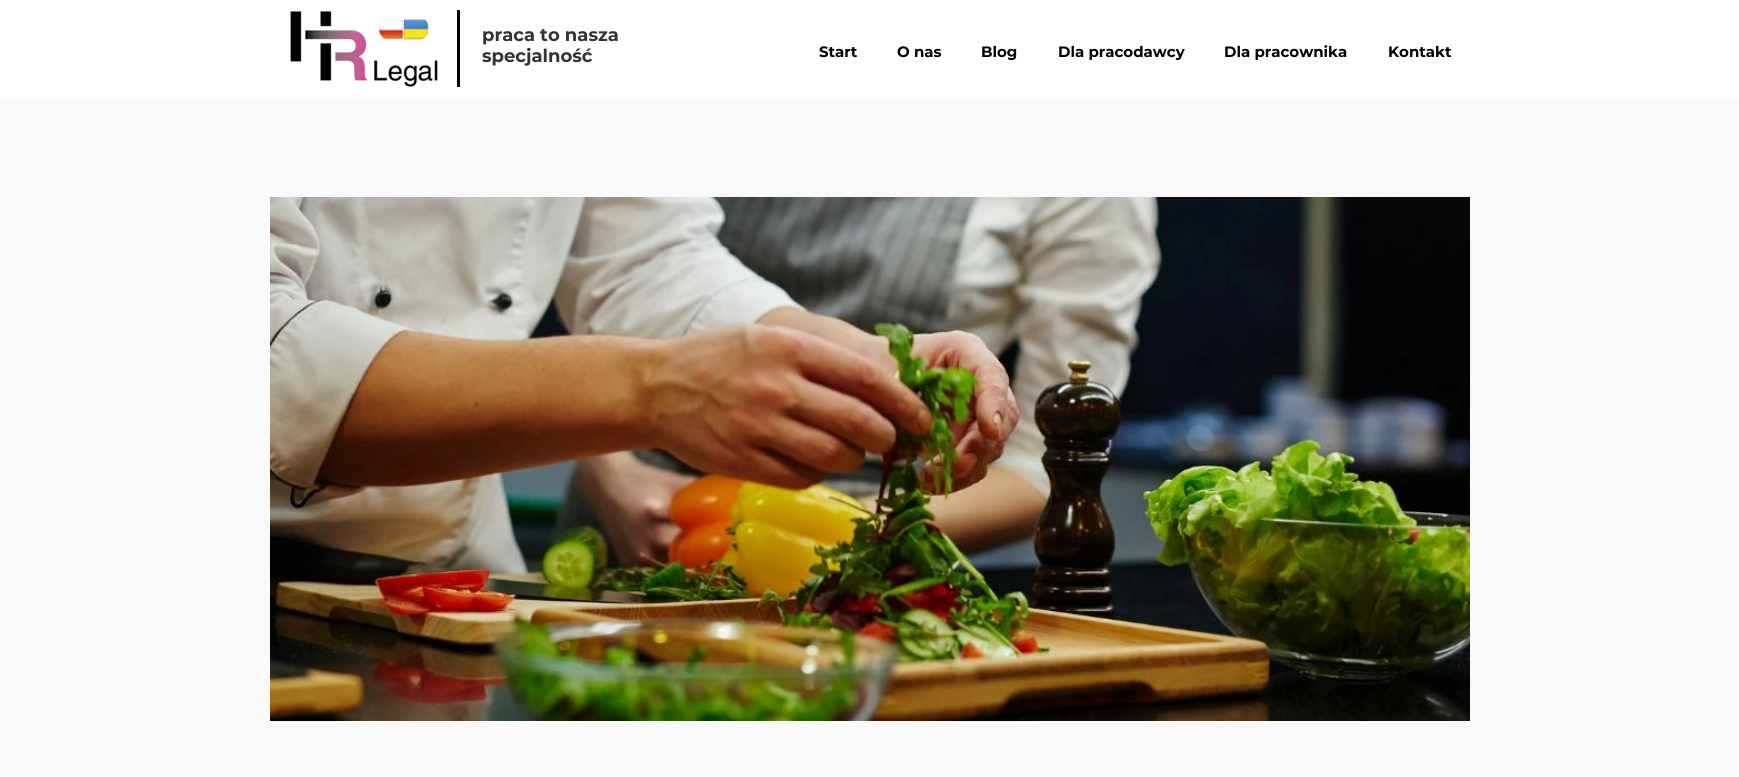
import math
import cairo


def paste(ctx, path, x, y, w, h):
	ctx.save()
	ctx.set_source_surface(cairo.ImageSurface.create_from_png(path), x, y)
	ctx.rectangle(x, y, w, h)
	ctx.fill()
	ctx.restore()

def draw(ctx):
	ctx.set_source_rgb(0.973, 0.973, 0.973)
	ctx.paint()
	ctx.set_source_rgb(1, 1, 1)
	ctx.rectangle(0, 0, 1739, 97)
	ctx.fill()
	paste(ctx, 'media/1.png', 290, 11, 148, 76)
	ctx.set_source_rgb(0, 0, 0)
	ctx.rectangle(457, 10, 3, 77)
	ctx.fill()
	paste(ctx, 'media/2.png', 379, 19, 25, 21)
	paste(ctx, 'media/3.png', 404, 19, 25, 21)
	ctx.select_font_face('Montserrat Thin')
	ctx.set_font_size(18)
	ctx.set_source_rgb(0.2, 0.2, 0.2)
	ctx.move_to(482, 41)
	ctx.show_text('praca to nasza')
	ctx.move_to(482, 62)
	ctx.show_text('specjalność')
	ctx.set_font_size(15)
	ctx.set_source_rgb(0, 0, 0)
	for x, y, s in [
		(819, 57, 'Start'),
		(897, 57, 'O nas'),
		(981, 57, 'Blog'),
		(1058, 57, 'Dla pracodawcy'),
		(1224, 57, 'Dla pracownika'),
		(1388, 57, 'Kontakt'),
	]:
		ctx.move_to(x, y)
		ctx.show_text(s)
	paste(ctx, 'media/4.png', 270, 197, 1200, 524)


surface = cairo.ImageSurface(cairo.FORMAT_RGB24, 1739, 777)
ctx = cairo.Context(surface)
options = cairo.FontOptions()
options.set_hint_metrics(cairo.HINT_METRICS_OFF)
options.set_hint_style(cairo.HINT_STYLE_NONE)
ctx.set_font_options(options)
ctx.set_miter_limit(4)
draw(ctx)
surface.write_to_png('image.png')
